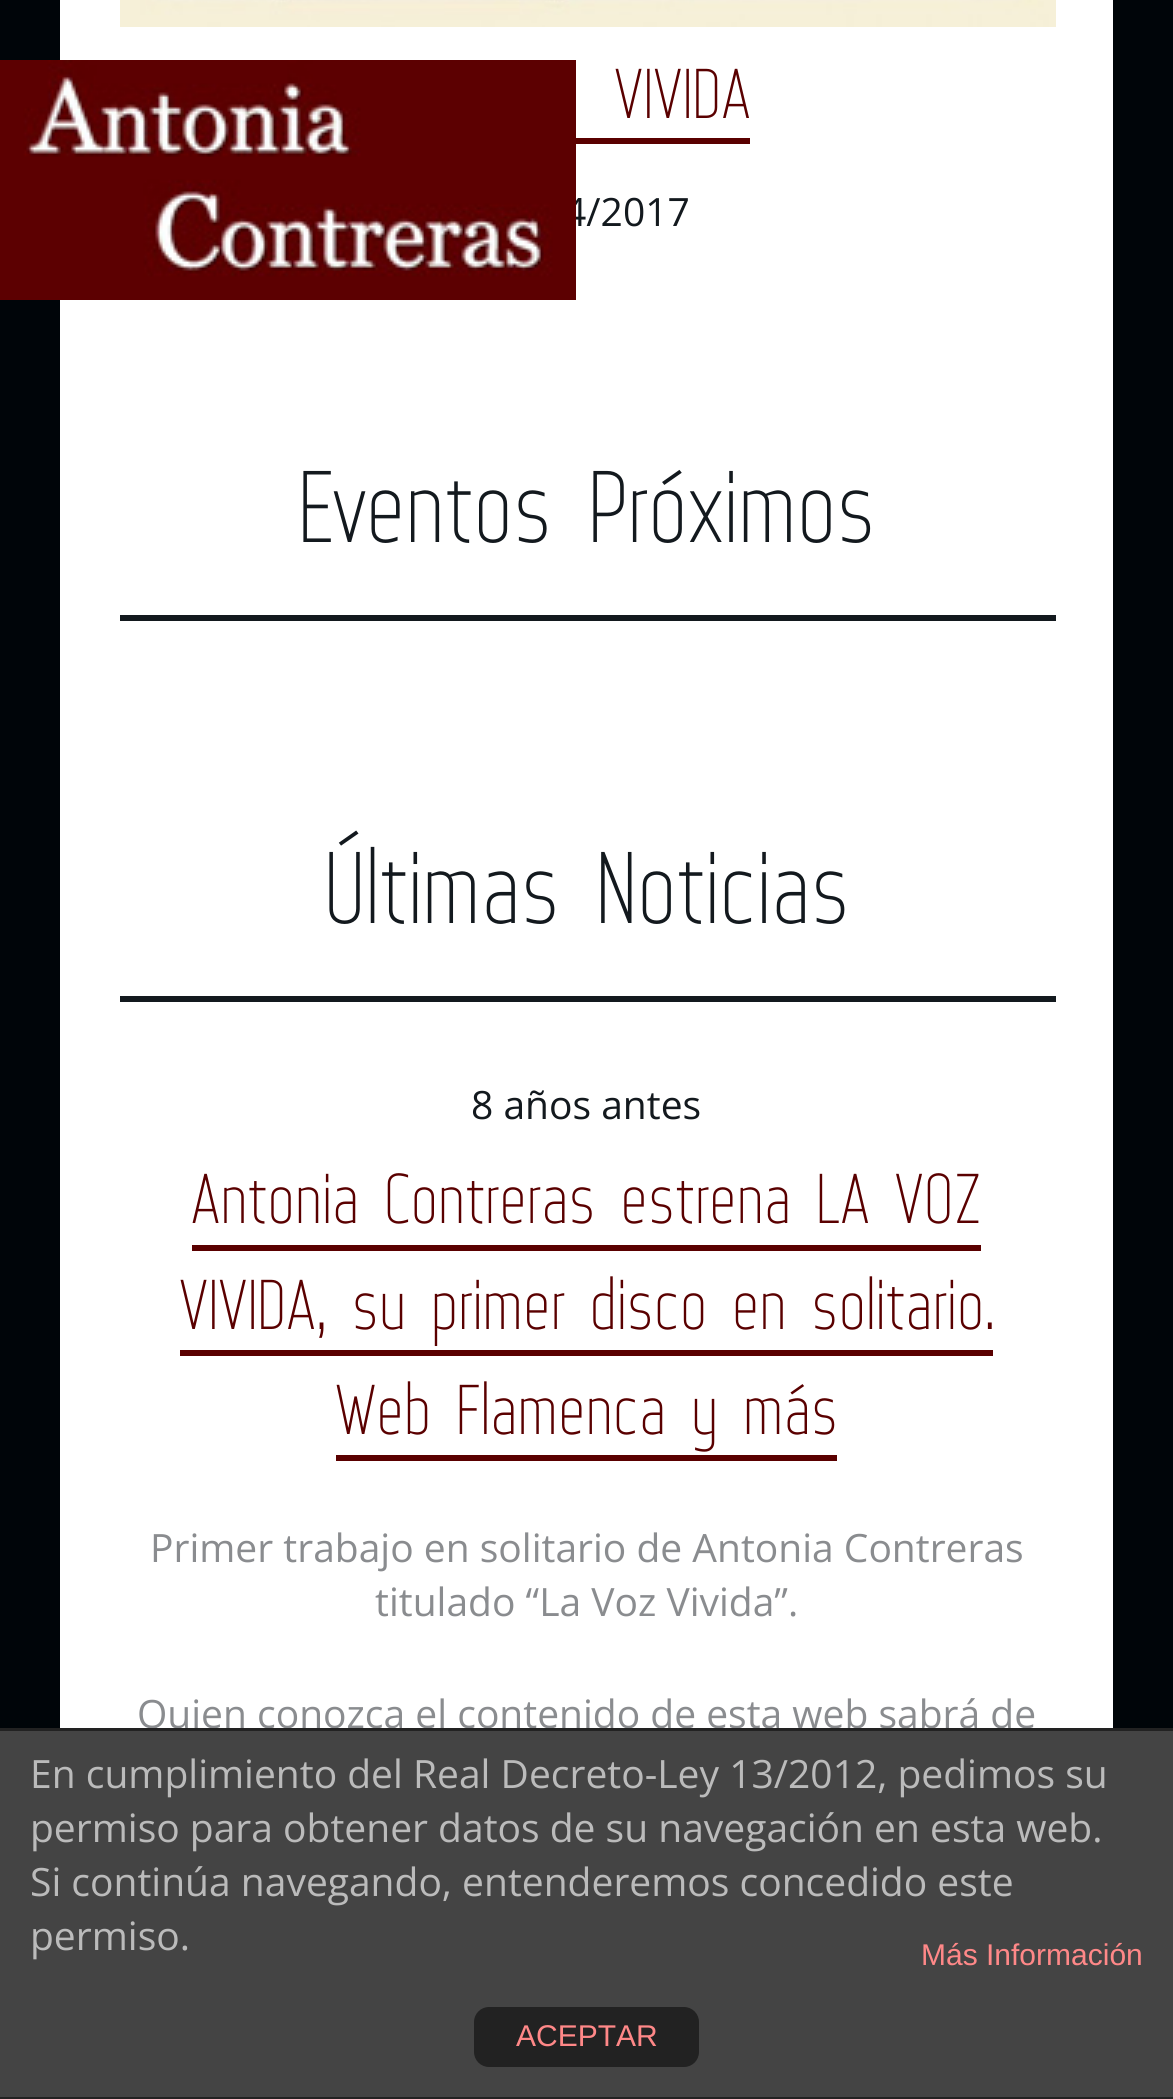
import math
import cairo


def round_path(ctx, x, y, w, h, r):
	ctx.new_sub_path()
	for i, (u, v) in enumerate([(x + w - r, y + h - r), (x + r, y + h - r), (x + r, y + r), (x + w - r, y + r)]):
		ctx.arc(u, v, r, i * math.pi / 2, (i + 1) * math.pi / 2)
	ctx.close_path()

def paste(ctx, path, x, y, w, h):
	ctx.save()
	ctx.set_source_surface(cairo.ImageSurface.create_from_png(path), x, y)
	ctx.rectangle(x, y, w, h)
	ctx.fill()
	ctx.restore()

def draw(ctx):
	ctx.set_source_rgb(0, 0.02, 0.039)
	ctx.paint()
	ctx.set_source_rgb(1, 1, 1)
	ctx.rectangle(60, 0, 1053, 1728)
	ctx.fill()
	ctx.select_font_face('Open Sans')
	ctx.set_font_size(39)
	ctx.set_source_rgb(0.078, 0.098, 0.118)
	ctx.move_to(564, 226)
	ctx.show_text('4/2017')
	paste(ctx, 'media/1.png', 0, 60, 576, 240)
	paste(ctx, 'media/2.png', 120, 0, 936, 27)
	ctx.select_font_face('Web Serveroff')
	ctx.set_font_size(70.25)
	ctx.set_source_rgb(0.353, 0, 0)
	ctx.move_to(614, 118)
	ctx.show_text('VIVIDA')
	ctx.rectangle(576, 138, 174, 6)
	ctx.fill()
	ctx.set_source_rgb(0.078, 0.098, 0.118)
	ctx.rectangle(120, 615, 936, 6)
	ctx.fill()
	ctx.set_font_size(101.5)
	ctx.move_to(298, 542)
	ctx.show_text('Eventos Próximos')
	ctx.rectangle(120, 996, 936, 6)
	ctx.fill()
	ctx.move_to(324, 923)
	ctx.show_text('Últimas Noticias')
	ctx.select_font_face('Open Sans')
	ctx.set_font_size(39)
	ctx.move_to(471, 1119)
	ctx.show_text('8 años antes')
	ctx.select_font_face('Web Serveroff')
	ctx.set_font_size(70.25)
	ctx.set_source_rgb(0.353, 0, 0)
	ctx.move_to(191, 1223)
	ctx.show_text('Antonia Contreras estrena LA VOZ')
	ctx.rectangle(192, 1245, 789, 6)
	ctx.fill()
	ctx.move_to(179, 1329)
	ctx.show_text('VIVIDA, su primer disco en solitario.')
	ctx.rectangle(180, 1350, 813, 6)
	ctx.fill()
	ctx.move_to(335, 1434)
	ctx.show_text('Web Flamenca y más')
	ctx.rectangle(336, 1455, 501, 6)
	ctx.fill()
	ctx.select_font_face('Open Sans')
	ctx.set_font_size(39)
	ctx.set_source_rgb(0.541, 0.549, 0.561)
	for x, y, s in [
		(150, 1562, 'Primer trabajo en solitario de Antonia Contreras'),
		(375, 1616, 'titulado “La Voz Vivida”.'),
		(137, 1728, 'Quien conozca el contenido de esta web sabrá de'),
	]:
		ctx.move_to(x, y)
		ctx.show_text(s)
	ctx.set_source_rgb(0.267, 0.267, 0.267)
	ctx.rectangle(0, 1731, 1173, 366)
	ctx.fill()
	ctx.set_source_rgb(0.133, 0.133, 0.133)
	ctx.rectangle(0, 1728, 1173, 3)
	ctx.rectangle(0, 2097, 1173, 2)
	ctx.fill()
	ctx.set_source_rgb(0.733, 0.733, 0.733)
	for x, y, s in [
		(30, 1788, 'En cumplimiento del Real Decreto-Ley 13/2012, pedimos su'),
		(30, 1842, 'permiso para obtener datos de su navegación en esta web.'),
		(30, 1896, 'Si continúa navegando, entenderemos concedido este'),
		(30, 1950, 'permiso.'),
	]:
		ctx.move_to(x, y)
		ctx.show_text(s)
	ctx.select_font_face('Liberation Sans')
	ctx.set_font_size(30)
	ctx.set_source_rgb(1, 0.533, 0.533)
	ctx.move_to(921, 1965)
	ctx.show_text('Más Información')
	ctx.set_source_rgb(0.133, 0.133, 0.133)
	round_path(ctx, 474, 2007, 225, 60, 15)
	ctx.fill()
	ctx.set_source_rgb(1, 0.533, 0.533)
	ctx.move_to(516, 2046)
	ctx.show_text('ACEPTAR')


surface = cairo.ImageSurface(cairo.FORMAT_RGB24, 1173, 2099)
ctx = cairo.Context(surface)
options = cairo.FontOptions()
options.set_hint_metrics(cairo.HINT_METRICS_OFF)
options.set_hint_style(cairo.HINT_STYLE_NONE)
ctx.set_font_options(options)
ctx.set_miter_limit(4)
draw(ctx)
surface.write_to_png('image.png')
